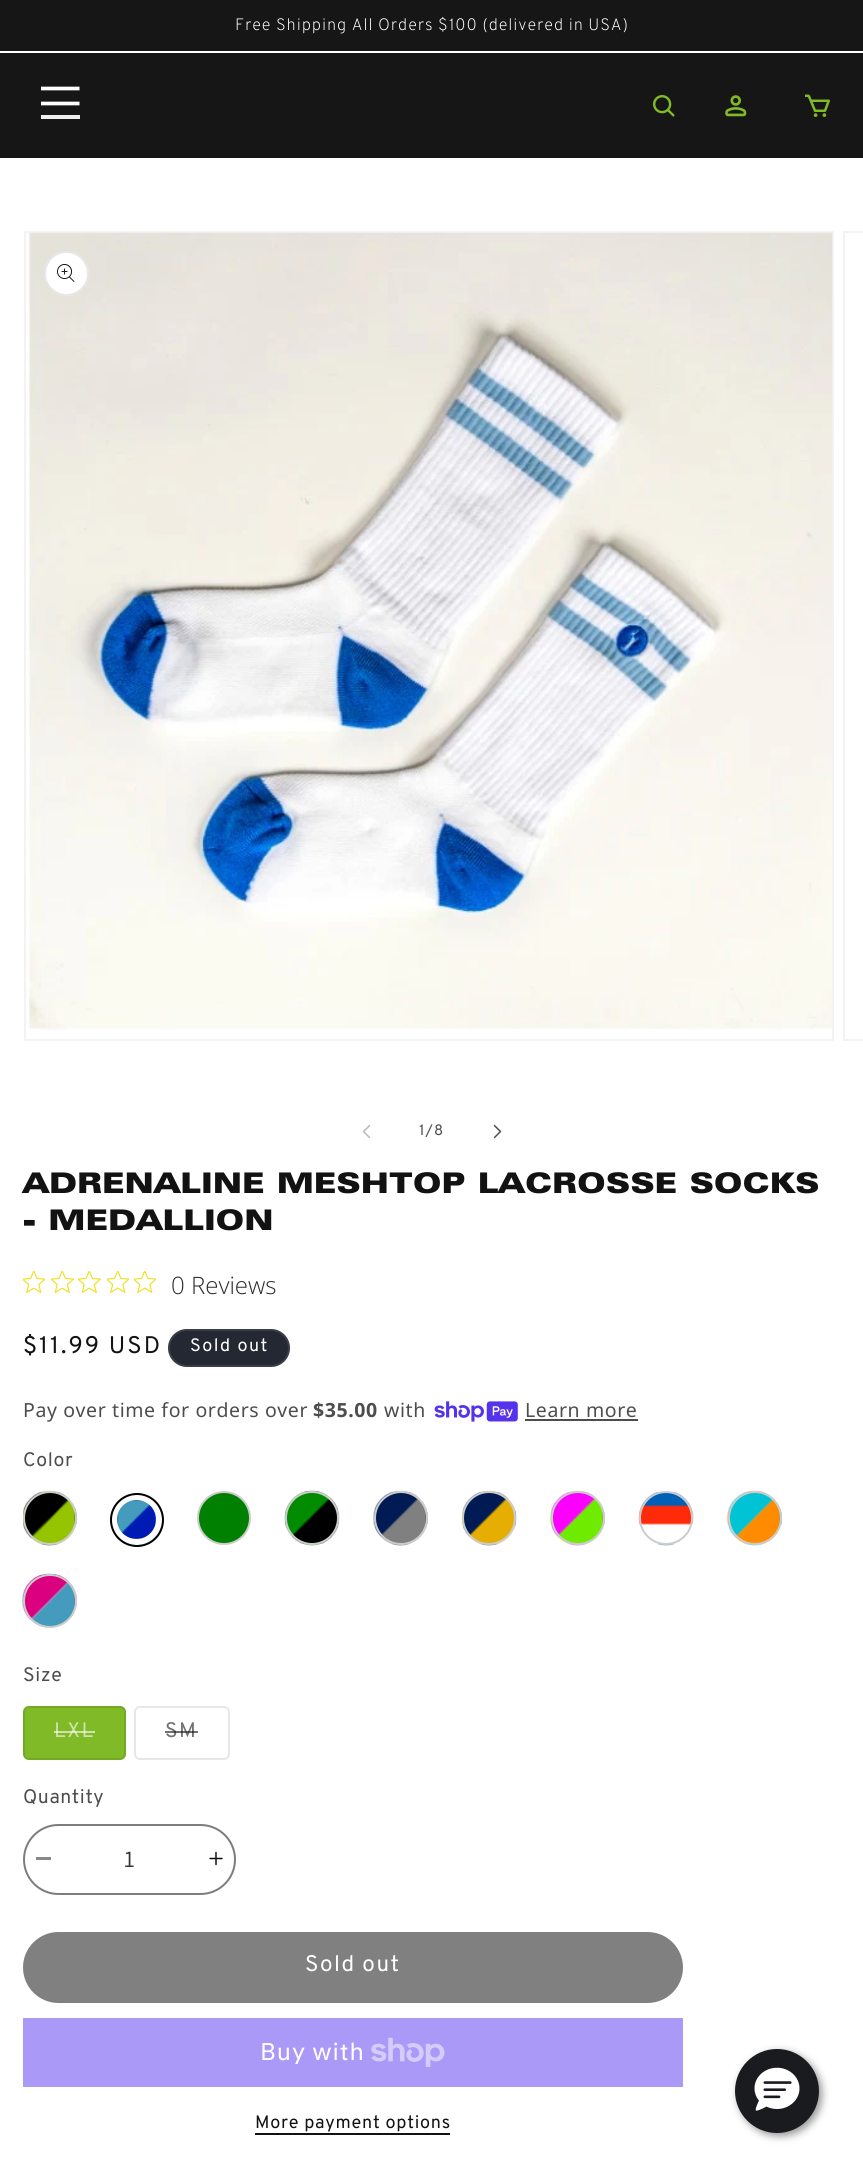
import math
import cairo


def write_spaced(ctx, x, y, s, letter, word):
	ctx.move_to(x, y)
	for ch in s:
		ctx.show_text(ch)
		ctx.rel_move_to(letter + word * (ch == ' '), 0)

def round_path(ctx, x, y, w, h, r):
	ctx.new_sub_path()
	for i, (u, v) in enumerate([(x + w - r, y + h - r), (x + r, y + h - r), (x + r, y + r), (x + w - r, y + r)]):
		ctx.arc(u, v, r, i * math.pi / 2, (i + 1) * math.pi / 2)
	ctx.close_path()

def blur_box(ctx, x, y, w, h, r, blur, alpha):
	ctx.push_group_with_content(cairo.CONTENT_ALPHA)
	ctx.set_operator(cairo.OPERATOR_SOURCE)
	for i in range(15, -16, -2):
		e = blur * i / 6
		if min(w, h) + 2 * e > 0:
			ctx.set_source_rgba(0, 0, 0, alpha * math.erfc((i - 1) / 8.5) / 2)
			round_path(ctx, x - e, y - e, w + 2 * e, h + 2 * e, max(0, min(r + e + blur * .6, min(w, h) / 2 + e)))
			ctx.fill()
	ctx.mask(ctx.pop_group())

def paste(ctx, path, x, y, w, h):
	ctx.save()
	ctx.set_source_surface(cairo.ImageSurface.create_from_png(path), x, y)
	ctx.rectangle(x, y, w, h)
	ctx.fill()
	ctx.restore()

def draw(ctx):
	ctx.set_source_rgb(1, 1, 1)
	ctx.paint()
	ctx.set_source_rgb(0.086, 0.086, 0.086)
	ctx.rectangle(0, 0, 863, 51)
	ctx.fill()
	ctx.select_font_face('Overpass ExtraLight')
	ctx.set_font_size(16.5)
	ctx.set_source_rgb(1, 1, 1)
	write_spaced(ctx, 235, 30, 'Free Shipping All Orders $100 (delivered in USA)', 0.9, 0)
	ctx.set_source_rgb(0.086, 0.086, 0.086)
	ctx.rectangle(0, 53, 863, 105)
	ctx.fill()
	ctx.save()
	ctx.rectangle(41, 86, 40, 34)
	ctx.clip()
	ctx.new_path()
	ctx.move_to(40.5, 88.5)
	ctx.line_to(79.5, 88.5)
	ctx.move_to(40.5, 103.5)
	ctx.line_to(79.5, 103.5)
	ctx.set_source_rgb(1, 1, 1)
	ctx.set_line_width(3.7)
	ctx.stroke()
	ctx.restore()
	ctx.set_source_rgb(0.933, 0.933, 0.933)
	ctx.rectangle(41, 115, 39, 4)
	ctx.fill()
	paste(ctx, 'media/1.png', 653, 95, 22, 22)
	paste(ctx, 'media/2.png', 725, 95, 22, 22)
	paste(ctx, 'media/3.png', 805, 94, 25, 23)
	ctx.rectangle(25, 232, 808, 808)
	ctx.set_source_rgb(0.953, 0.953, 0.953)
	ctx.stroke()
	paste(ctx, 'media/4.png', 26, 232, 807, 799)
	ctx.set_source_rgb(1, 1, 1)
	ctx.arc(66.5, 273.5, 22.5, 0, 2 * math.pi)
	ctx.fill()
	ctx.arc(66.5, 273.5, 21.5, 0, 2 * math.pi)
	ctx.set_source_rgba(0.071, 0.071, 0.071, 0.1)
	ctx.stroke()
	paste(ctx, 'media/5.png', 57, 264, 18, 18)
	ctx.rectangle(844, 232, 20, 808)
	ctx.set_source_rgb(0.953, 0.953, 0.953)
	ctx.stroke()
	paste(ctx, 'media/6.png', 362, 1124, 9, 15)
	ctx.select_font_face('Overpass')
	ctx.set_font_size(15)
	ctx.set_source_rgb(0.302, 0.302, 0.302)
	write_spaced(ctx, 419, 1135, '1/8', 1, 0)
	paste(ctx, 'media/7.png', 493, 1124, 9, 15)
	ctx.select_font_face('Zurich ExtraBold')
	ctx.set_font_size(28.5)
	ctx.set_source_rgb(0.071, 0.071, 0.071)
	write_spaced(ctx, 23, 1193, 'ADRENALINE MESHTOP LACROSSE SOCKS', 0.9, 0)
	write_spaced(ctx, 23, 1230, '- MEDALLION', 0.9, 0)
	paste(ctx, 'media/8.png', 23, 1271, 22, 22)
	paste(ctx, 'media/9.png', 51, 1271, 23, 22)
	paste(ctx, 'media/9.png', 78, 1271, 23, 22)
	paste(ctx, 'media/8.png', 107, 1271, 22, 22)
	paste(ctx, 'media/8.png', 134, 1271, 22, 22)
	ctx.select_font_face('Open Sans Light')
	ctx.set_font_size(24)
	ctx.set_source_rgb(0.173, 0.173, 0.173)
	ctx.move_to(171, 1294)
	ctx.show_text('0 Reviews')
	ctx.select_font_face('Overpass')
	ctx.set_source_rgb(0.071, 0.071, 0.071)
	write_spaced(ctx, 23, 1353, '$11.99 USD', 2, 0)
	ctx.set_source_rgb(0.141, 0.157, 0.2)
	round_path(ctx, 168, 1329, 122, 38, 19)
	ctx.fill()
	round_path(ctx, 169, 1330, 120, 36, 18)
	ctx.set_source_rgba(1, 1, 1, 0.1)
	ctx.stroke()
	ctx.set_font_size(18)
	ctx.set_source_rgb(1, 1, 1)
	write_spaced(ctx, 190, 1351, 'Sold out', 1.5, 0)
	ctx.select_font_face('Noto Sans')
	ctx.set_font_size(19.5)
	ctx.set_source_rgb(0.302, 0.302, 0.302)
	write_spaced(ctx, 23, 1417, 'Pay over time for orders over', 0.6, 0)
	ctx.select_font_face('Noto Sans', cairo.FONT_SLANT_NORMAL, cairo.FONT_WEIGHT_BOLD)
	write_spaced(ctx, 313, 1417, '$35.00', 0.6, 0)
	ctx.select_font_face('Noto Sans')
	write_spaced(ctx, 384, 1417, 'with', 0.6, 0)
	paste(ctx, 'media/10.png', 434, 1401, 84, 21)
	write_spaced(ctx, 525, 1417, 'Learn more', 0.6, 0)
	ctx.rectangle(525, 1419, 113, 2)
	ctx.fill()
	ctx.select_font_face('Overpass')
	write_spaced(ctx, 23, 1466, 'Color', 0.6, 0)
	paste(ctx, 'media/11.png', 23, 1490, 54, 56)
	ctx.arc(50, 1518, 26, 0, 2 * math.pi)
	ctx.set_source_rgb(0.8, 0.8, 0.8)
	ctx.stroke()
	paste(ctx, 'media/12.png', 110, 1493, 52, 52)
	ctx.arc(136.5, 1519.5, 22.5, 0, 2 * math.pi)
	ctx.set_source_rgb(1, 1, 1)
	ctx.set_line_width(6)
	ctx.stroke()
	ctx.arc(137, 1520, 26, 0, 2 * math.pi)
	ctx.set_source_rgb(0, 0, 0)
	ctx.set_line_width(2)
	ctx.stroke()
	ctx.set_source_rgb(0, 0.502, 0)
	ctx.arc(224, 1518, 26, 0, 2 * math.pi)
	ctx.fill_preserve()
	ctx.set_source_rgb(0.8, 0.8, 0.8)
	ctx.stroke()
	paste(ctx, 'media/13.png', 284, 1490, 56, 56)
	ctx.arc(312, 1518, 26, 0, 2 * math.pi)
	ctx.stroke()
	paste(ctx, 'media/14.png', 373, 1490, 55, 56)
	ctx.arc(401, 1518, 26, 0, 2 * math.pi)
	ctx.stroke()
	paste(ctx, 'media/15.png', 461, 1490, 56, 56)
	ctx.arc(489, 1518, 26, 0, 2 * math.pi)
	ctx.stroke()
	paste(ctx, 'media/16.png', 550, 1490, 55, 56)
	ctx.arc(578, 1518, 26, 0, 2 * math.pi)
	ctx.stroke()
	paste(ctx, 'media/17.png', 638, 1492, 56, 54)
	ctx.arc(666, 1518, 26, 0, 2 * math.pi)
	ctx.stroke()
	paste(ctx, 'media/18.png', 727, 1490, 55, 56)
	ctx.arc(755, 1518, 26, 0, 2 * math.pi)
	ctx.stroke()
	paste(ctx, 'media/19.png', 22, 1573, 55, 55)
	ctx.arc(50, 1601, 26, 0, 2 * math.pi)
	ctx.stroke()
	ctx.set_source_rgb(0.302, 0.302, 0.302)
	write_spaced(ctx, 23, 1681, 'Size', 0.6, 0)
	ctx.set_source_rgb(0.502, 0.729, 0.153)
	round_path(ctx, 23, 1706, 103, 54, 6)
	ctx.fill()
	round_path(ctx, 24, 1707, 101, 52, 5)
	ctx.set_source_rgba(0.071, 0.071, 0.071, 0.1)
	ctx.stroke()
	ctx.set_font_size(21)
	ctx.set_source_rgb(0.8, 0.89, 0.663)
	write_spaced(ctx, 54, 1737, 'LXL', 1.5, 0)
	ctx.set_source_rgba(1, 1, 1, 0.6)
	ctx.rectangle(54, 1731, 41, 2)
	ctx.fill()
	round_path(ctx, 135, 1707, 94, 52, 5)
	ctx.set_source_rgb(0.906, 0.906, 0.906)
	ctx.stroke()
	ctx.set_source_rgb(0.443, 0.443, 0.443)
	write_spaced(ctx, 165, 1737, 'SM', 1.5, 0)
	ctx.set_source_rgba(0.071, 0.071, 0.071, 0.6)
	ctx.rectangle(165, 1731, 33, 2)
	ctx.fill()
	ctx.set_font_size(19.5)
	ctx.set_source_rgb(0.302, 0.302, 0.302)
	write_spaced(ctx, 23, 1803, 'Quantity', 0.6, 0)
	ctx.set_source_rgb(0.537, 0.537, 0.537)
	ctx.rectangle(36, 1857, 15, 3)
	ctx.fill()
	paste(ctx, 'media/20.png', 209, 1851, 14, 15)
	round_path(ctx, 24, 1825, 211, 69, 34.5)
	ctx.set_source_rgb(0.49, 0.49, 0.49)
	ctx.stroke()
	ctx.select_font_face('Assistant')
	ctx.set_font_size(24)
	ctx.set_source_rgb(0.212, 0.212, 0.212)
	ctx.move_to(124, 1867)
	ctx.show_text('1')
	ctx.set_source_rgb(0.502, 0.502, 0.502)
	round_path(ctx, 23, 1932, 660, 71, 35.5)
	ctx.fill()
	ctx.select_font_face('Overpass')
	ctx.set_font_size(22.5)
	ctx.set_source_rgb(1, 1, 1)
	write_spaced(ctx, 305, 1971, 'Sold out', 1.5, 0)
	ctx.set_source_rgb(0.667, 0.6, 0.961)
	ctx.rectangle(23, 2018, 660, 69)
	ctx.fill()
	ctx.select_font_face('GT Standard')
	ctx.set_font_size(24)
	ctx.set_source_rgb(1, 1, 1)
	write_spaced(ctx, 260, 2060, 'Buy with', 0.9, 0)
	paste(ctx, 'media/21.png', 371, 2037, 74, 30)
	ctx.select_font_face('Overpass')
	ctx.set_font_size(18)
	ctx.set_source_rgb(0.071, 0.071, 0.071)
	write_spaced(ctx, 255, 2128, 'More payment options', 0.75, 0)
	ctx.rectangle(255, 2133, 195, 2)
	ctx.fill()
	ctx.set_source_rgb(0.176, 0.176, 0.176)
	blur_box(ctx, 738, 2052, 84, 84, 42, 4, 0.5)
	ctx.set_source_rgb(0.102, 0.106, 0.118)
	ctx.arc(777, 2091, 42, 0, 2 * math.pi)
	ctx.fill()
	paste(ctx, 'media/22.png', 754, 2067, 46, 44)


surface = cairo.ImageSurface(cairo.FORMAT_RGB24, 863, 2170)
ctx = cairo.Context(surface)
options = cairo.FontOptions()
options.set_hint_metrics(cairo.HINT_METRICS_OFF)
options.set_hint_style(cairo.HINT_STYLE_NONE)
ctx.set_font_options(options)
ctx.set_miter_limit(4)
draw(ctx)
surface.write_to_png('image.png')
